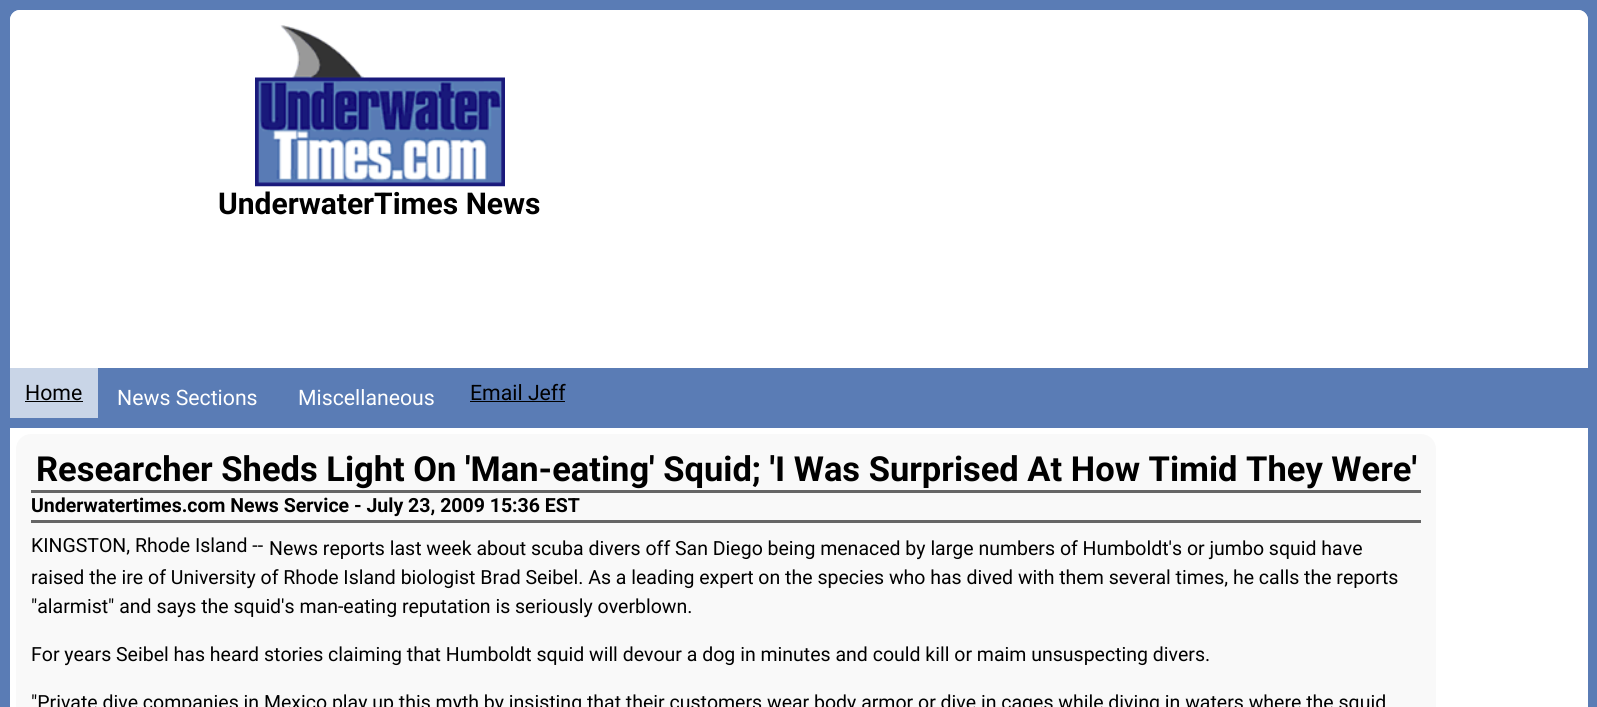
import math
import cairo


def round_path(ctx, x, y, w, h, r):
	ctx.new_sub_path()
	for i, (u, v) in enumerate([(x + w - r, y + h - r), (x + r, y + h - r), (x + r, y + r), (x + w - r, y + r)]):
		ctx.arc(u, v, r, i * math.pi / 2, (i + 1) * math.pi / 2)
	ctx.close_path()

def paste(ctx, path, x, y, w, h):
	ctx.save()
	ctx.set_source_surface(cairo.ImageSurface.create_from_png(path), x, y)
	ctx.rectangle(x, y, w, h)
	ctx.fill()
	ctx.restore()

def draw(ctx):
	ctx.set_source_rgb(0.353, 0.486, 0.71)
	ctx.paint()
	ctx.set_source_rgb(1, 1, 1)
	round_path(ctx, 10, 10, 1578, 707, 10)
	ctx.fill()
	round_path(ctx, 10, 10, 1578, 25, 10)
	ctx.fill()
	paste(ctx, 'media/1.png', 255, 25, 250, 162)
	ctx.select_font_face('Roboto', cairo.FONT_SLANT_NORMAL, cairo.FONT_WEIGHT_BOLD)
	ctx.set_font_size(30)
	ctx.set_source_rgb(0, 0, 0)
	ctx.move_to(218, 214)
	ctx.show_text('UnderwaterTimes News')
	ctx.set_source_rgb(0.353, 0.486, 0.71)
	ctx.rectangle(10, 368, 1578, 60)
	ctx.fill()
	ctx.set_source_rgb(0.788, 0.835, 0.906)
	ctx.rectangle(10, 368, 88, 50)
	ctx.fill()
	ctx.select_font_face('Roboto')
	ctx.set_font_size(21.25)
	ctx.set_source_rgb(0, 0, 0)
	ctx.move_to(25, 400)
	ctx.show_text('Home')
	ctx.rectangle(25, 401, 58, 1)
	ctx.fill()
	ctx.set_source_rgb(1, 1, 1)
	ctx.move_to(117, 405)
	ctx.show_text('News Sections')
	ctx.move_to(298, 405)
	ctx.show_text('Miscellaneous')
	ctx.set_source_rgb(0, 0, 0)
	ctx.move_to(470, 400)
	ctx.show_text('Email Jeff')
	ctx.rectangle(470, 401, 95, 1)
	ctx.fill()
	ctx.set_source_rgb(0.976, 0.976, 0.976)
	round_path(ctx, 16, 434, 1420, 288, 15)
	ctx.fill()
	ctx.select_font_face('Roboto', cairo.FONT_SLANT_NORMAL, cairo.FONT_WEIGHT_BOLD)
	ctx.set_font_size(34.5)
	ctx.set_source_rgb(0, 0, 0)
	ctx.move_to(36, 481)
	ctx.show_text('Researcher Sheds Light On \'Man-eating\' Squid; \'I Was Surprised At How Timid They Were\'')
	ctx.set_source_rgb(0.4, 0.4, 0.4)
	ctx.rectangle(31, 490, 1390, 3)
	ctx.fill()
	ctx.rectangle(31, 520, 1390, 3)
	ctx.fill()
	ctx.set_font_size(19.5)
	ctx.set_source_rgb(0, 0, 0)
	ctx.move_to(31, 512)
	ctx.show_text('Underwatertimes.com News Service - July 23, 2009 15:36 EST')
	ctx.select_font_face('Roboto')
	for x, y, s in [
		(31, 552, 'KINGSTON, Rhode Island --'),
		(269, 555, 'News reports last week about scuba divers off San Diego being menaced by large numbers of Humboldt\'s or jumbo squid have'),
		(31, 584, 'raised the ire of University of Rhode Island biologist Brad Seibel. As a leading expert on the species who has dived with them several times, he calls the reports'),
		(31, 613, '"alarmist" and says the squid\'s man-eating reputation is seriously overblown.'),
		(31, 661, 'For years Seibel has heard stories claiming that Humboldt squid will devour a dog in minutes and could kill or maim unsuspecting divers.'),
		(31, 709, '"Private dive companies in Mexico play up this myth by insisting that their customers wear body armor or dive in cages while diving in waters where the squid'),
	]:
		ctx.move_to(x, y)
		ctx.show_text(s)


surface = cairo.ImageSurface(cairo.FORMAT_RGB24, 1597, 707)
ctx = cairo.Context(surface)
options = cairo.FontOptions()
options.set_hint_metrics(cairo.HINT_METRICS_OFF)
options.set_hint_style(cairo.HINT_STYLE_NONE)
ctx.set_font_options(options)
ctx.set_miter_limit(4)
draw(ctx)
surface.write_to_png('image.png')
